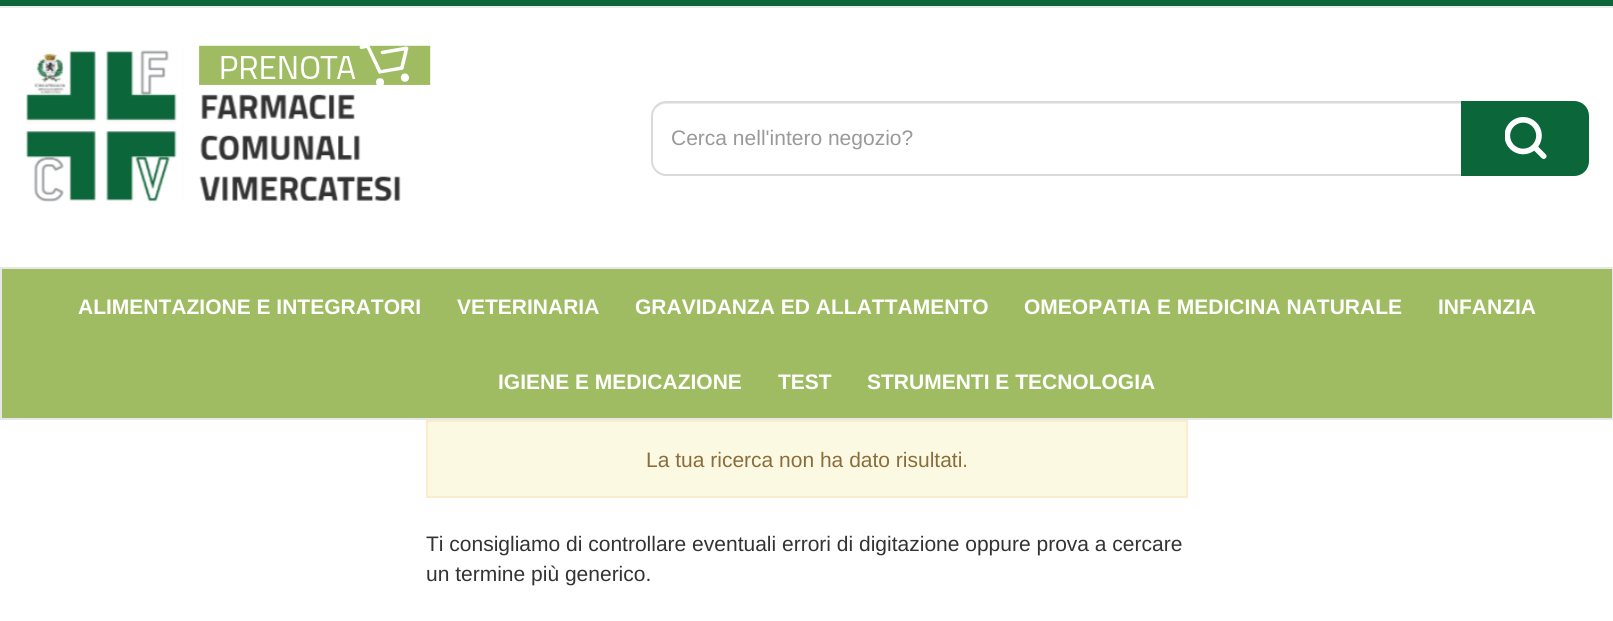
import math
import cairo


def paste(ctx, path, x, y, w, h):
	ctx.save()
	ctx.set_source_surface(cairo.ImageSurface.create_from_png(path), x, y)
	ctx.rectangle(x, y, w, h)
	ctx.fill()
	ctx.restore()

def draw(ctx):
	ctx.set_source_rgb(1, 1, 1)
	ctx.paint()
	ctx.set_source_rgb(0.043, 0.4, 0.227)
	ctx.rectangle(0, 0, 1613, 6)
	ctx.fill()
	ctx.set_source_rgb(0.922, 0.922, 0.922)
	ctx.rectangle(0, 6, 1613, 2)
	ctx.fill()
	paste(ctx, 'media/1.png', 25, 45, 406, 157)
	ctx.set_source_rgb(0.925, 0.925, 0.925)
	ctx.new_path()
	ctx.move_to(666, 104)
	ctx.line_to(1462, 104)
	ctx.line_to(1462, 174)
	ctx.line_to(1463, 174)
	ctx.line_to(1463, 102)
	ctx.line_to(667, 102)
	ctx.curve_to(661, 102, 656, 105, 654, 110)
	ctx.curve_to(657, 107, 661, 104, 666, 104)
	ctx.close_path()
	ctx.fill()
	ctx.new_path()
	ctx.move_to(666, 102)
	ctx.line_to(1463, 102)
	ctx.line_to(1463, 175)
	ctx.line_to(666, 175)
	ctx.curve_to(658.5, 175, 652, 168.5, 652, 161)
	ctx.line_to(652, 116)
	ctx.curve_to(652, 108.5, 658.5, 102, 666, 102)
	ctx.close_path()
	ctx.set_source_rgb(0.859, 0.855, 0.855)
	ctx.stroke()
	ctx.select_font_face('Liberation Sans')
	ctx.set_font_size(21)
	ctx.set_source_rgb(0.6, 0.6, 0.6)
	ctx.move_to(671, 145)
	ctx.show_text('Cerca nell\'intero negozio?')
	ctx.set_source_rgb(0.043, 0.4, 0.227)
	ctx.new_path()
	ctx.move_to(1461, 101)
	ctx.line_to(1574, 101)
	ctx.curve_to(1582.5, 101, 1589, 107.5, 1589, 116)
	ctx.line_to(1589, 161)
	ctx.curve_to(1589, 169.5, 1582.5, 176, 1574, 176)
	ctx.line_to(1461, 176)
	ctx.close_path()
	ctx.fill()
	paste(ctx, 'media/2.png', 1505, 117, 42, 42)
	ctx.set_source_rgb(0.624, 0.737, 0.384)
	ctx.rectangle(1, 268, 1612, 151)
	ctx.fill_preserve()
	ctx.set_source_rgb(0.906, 0.906, 0.906)
	ctx.stroke()
	ctx.select_font_face('Liberation Sans', cairo.FONT_SLANT_NORMAL, cairo.FONT_WEIGHT_BOLD)
	ctx.set_source_rgb(1, 1, 1)
	for x, y, s in [
		(78, 314, 'ALIMENTAZIONE E INTEGRATORI'),
		(457, 314, 'VETERINARIA'),
		(635, 314, 'GRAVIDANZA ED ALLATTAMENTO'),
		(1024, 314, 'OMEOPATIA E MEDICINA NATURALE'),
		(1438, 314, 'INFANZIA'),
		(498, 389, 'IGIENE E MEDICAZIONE'),
		(778, 389, 'TEST'),
		(867, 389, 'STRUMENTI E TECNOLOGIA'),
	]:
		ctx.move_to(x, y)
		ctx.show_text(s)
	ctx.set_source_rgb(0.988, 0.973, 0.89)
	ctx.rectangle(427, 421, 760, 76)
	ctx.fill_preserve()
	ctx.set_source_rgb(0.98, 0.922, 0.8)
	ctx.stroke()
	ctx.select_font_face('Liberation Sans')
	ctx.set_source_rgb(0.541, 0.427, 0.231)
	ctx.move_to(646, 467)
	ctx.show_text('La tua ricerca non ha dato risultati.')
	ctx.set_source_rgb(0.2, 0.2, 0.2)
	ctx.move_to(426, 551)
	ctx.show_text('Ti consigliamo di controllare eventuali errori di digitazione oppure prova a cercare')
	ctx.move_to(426, 581)
	ctx.show_text('un termine più generico.')


surface = cairo.ImageSurface(cairo.FORMAT_RGB24, 1613, 621)
ctx = cairo.Context(surface)
options = cairo.FontOptions()
options.set_hint_metrics(cairo.HINT_METRICS_OFF)
options.set_hint_style(cairo.HINT_STYLE_NONE)
ctx.set_font_options(options)
ctx.set_miter_limit(4)
draw(ctx)
surface.write_to_png('image.png')
